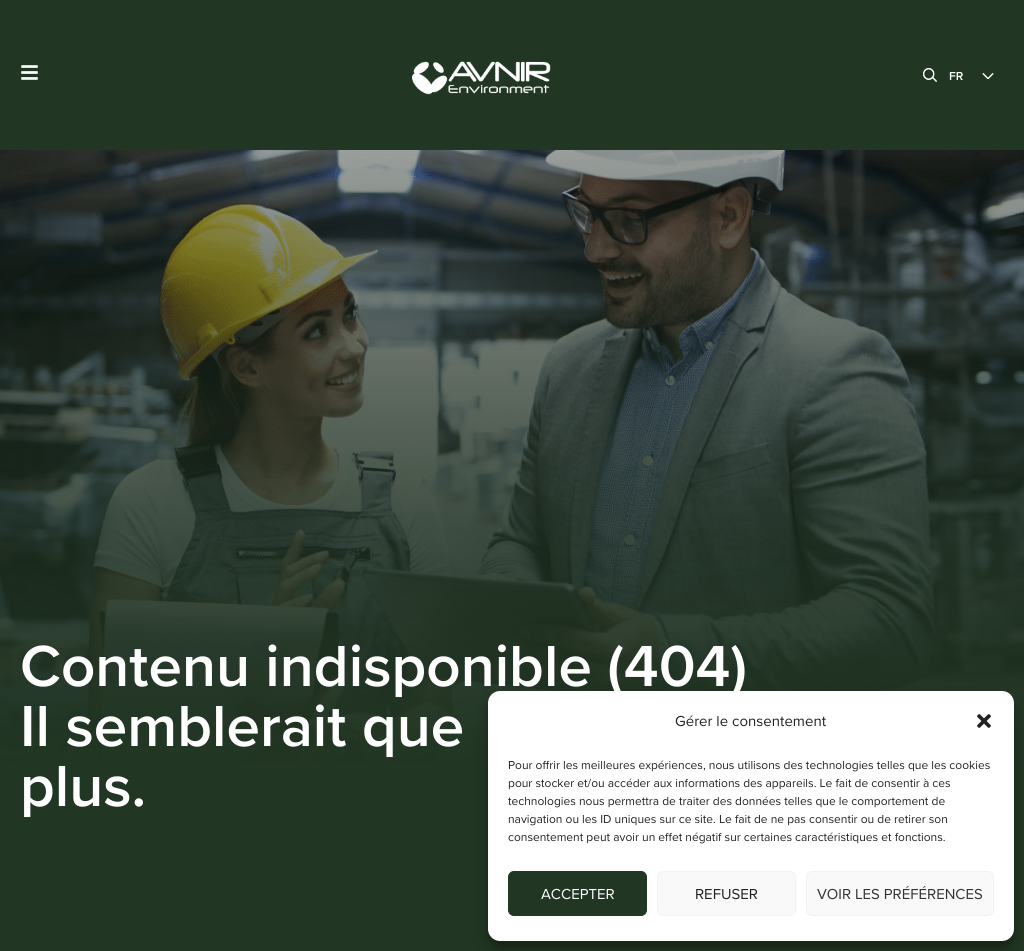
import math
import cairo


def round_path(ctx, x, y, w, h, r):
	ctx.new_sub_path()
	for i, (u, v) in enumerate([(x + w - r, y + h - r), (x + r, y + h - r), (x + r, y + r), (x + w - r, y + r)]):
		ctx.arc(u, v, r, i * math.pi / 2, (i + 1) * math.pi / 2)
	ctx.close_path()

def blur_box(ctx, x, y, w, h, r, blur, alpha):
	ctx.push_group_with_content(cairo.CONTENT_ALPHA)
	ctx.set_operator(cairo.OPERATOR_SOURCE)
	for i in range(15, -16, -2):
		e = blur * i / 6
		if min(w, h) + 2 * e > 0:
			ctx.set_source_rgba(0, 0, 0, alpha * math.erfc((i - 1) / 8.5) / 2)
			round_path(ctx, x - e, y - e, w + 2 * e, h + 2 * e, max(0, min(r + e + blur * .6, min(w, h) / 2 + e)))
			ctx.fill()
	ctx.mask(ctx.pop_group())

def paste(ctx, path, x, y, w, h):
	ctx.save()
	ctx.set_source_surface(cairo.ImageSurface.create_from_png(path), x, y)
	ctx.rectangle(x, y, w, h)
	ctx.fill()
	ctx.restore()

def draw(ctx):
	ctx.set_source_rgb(1, 1, 1)
	ctx.paint()
	ctx.set_source_rgb(0.129, 0.212, 0.137)
	ctx.rectangle(0, 0, 1024, 150)
	ctx.fill()
	paste(ctx, 'media/1.png', 21, 65, 17, 15)
	paste(ctx, 'media/2.png', 412, 61, 139, 34)
	paste(ctx, 'media/3.png', 923, 68, 14, 14)
	ctx.select_font_face('Proxima Nova SemiBold')
	ctx.set_font_size(12)
	ctx.set_source_rgb(1, 1, 1)
	ctx.move_to(949, 80)
	ctx.show_text('FR')
	paste(ctx, 'media/4.png', 982, 73, 12, 6)
	paste(ctx, 'media/5.png', 0, 150, 1024, 706)
	ctx.set_font_size(60)
	for x, y, s in [
		(20, 686, 'Contenu indisponible (404)'),
		(20, 746, 'Il semblerait que'),
		(20, 806, 'plus.'),
	]:
		ctx.move_to(x, y)
		ctx.show_text(s)
	ctx.set_source_rgb(0.129, 0.212, 0.137)
	ctx.rectangle(0, 856, 1024, 95)
	ctx.fill()
	ctx.set_source_rgb(0, 0, 0)
	blur_box(ctx, 488, 697, 526, 250, 12, 3, 0.23)
	blur_box(ctx, 488, 701, 526, 250, 12, 10, 0.19)
	ctx.set_source_rgb(1, 1, 1)
	round_path(ctx, 488, 691, 526, 250, 12)
	ctx.fill()
	ctx.select_font_face('Proxima Nova')
	ctx.set_font_size(15)
	ctx.set_source_rgb(0.133, 0.133, 0.133)
	ctx.move_to(675, 726)
	ctx.show_text('Gérer le consentement')
	paste(ctx, 'media/6.png', 977, 714, 14, 14)
	ctx.set_font_size(12)
	for x, y, s in [
		(508, 769, 'Pour offrir les meilleures expériences, nous utilisons des technologies telles que les cookies'),
		(508, 787, 'pour stocker et/ou accéder aux informations des appareils. Le fait de consentir à ces'),
		(508, 805, 'technologies nous permettra de traiter des données telles que le comportement de'),
		(508, 823, 'navigation ou les ID uniques sur ce site. Le fait de ne pas consentir ou de retirer son'),
		(508, 841, 'consentement peut avoir un effet négatif sur certaines caractéristiques et fonctions.'),
	]:
		ctx.move_to(x, y)
		ctx.show_text(s)
	ctx.set_source_rgb(0.129, 0.212, 0.137)
	round_path(ctx, 508.5, 871.5, 138, 44, 5.5)
	ctx.fill_preserve()
	ctx.set_line_width(1)
	ctx.stroke()
	ctx.set_font_size(15)
	ctx.set_source_rgb(1, 1, 1)
	ctx.move_to(541, 899)
	ctx.show_text('ACCEPTER')
	ctx.set_source_rgb(0.976, 0.976, 0.976)
	round_path(ctx, 657.5, 871.5, 138, 44, 5.5)
	ctx.fill_preserve()
	ctx.set_source_rgb(0.949, 0.949, 0.949)
	ctx.stroke()
	ctx.set_source_rgb(0.133, 0.133, 0.133)
	ctx.move_to(695, 899)
	ctx.show_text('REFUSER')
	ctx.set_source_rgb(0.976, 0.976, 0.976)
	round_path(ctx, 806.5, 871.5, 187, 44, 5.5)
	ctx.fill_preserve()
	ctx.set_source_rgb(0.949, 0.949, 0.949)
	ctx.stroke()
	ctx.set_source_rgb(0.2, 0.2, 0.2)
	ctx.move_to(817, 899)
	ctx.show_text('VOIR LES PRÉFÉRENCES')


surface = cairo.ImageSurface(cairo.FORMAT_RGB24, 1024, 951)
ctx = cairo.Context(surface)
options = cairo.FontOptions()
options.set_hint_metrics(cairo.HINT_METRICS_OFF)
options.set_hint_style(cairo.HINT_STYLE_NONE)
ctx.set_font_options(options)
ctx.set_miter_limit(4)
draw(ctx)
surface.write_to_png('image.png')
